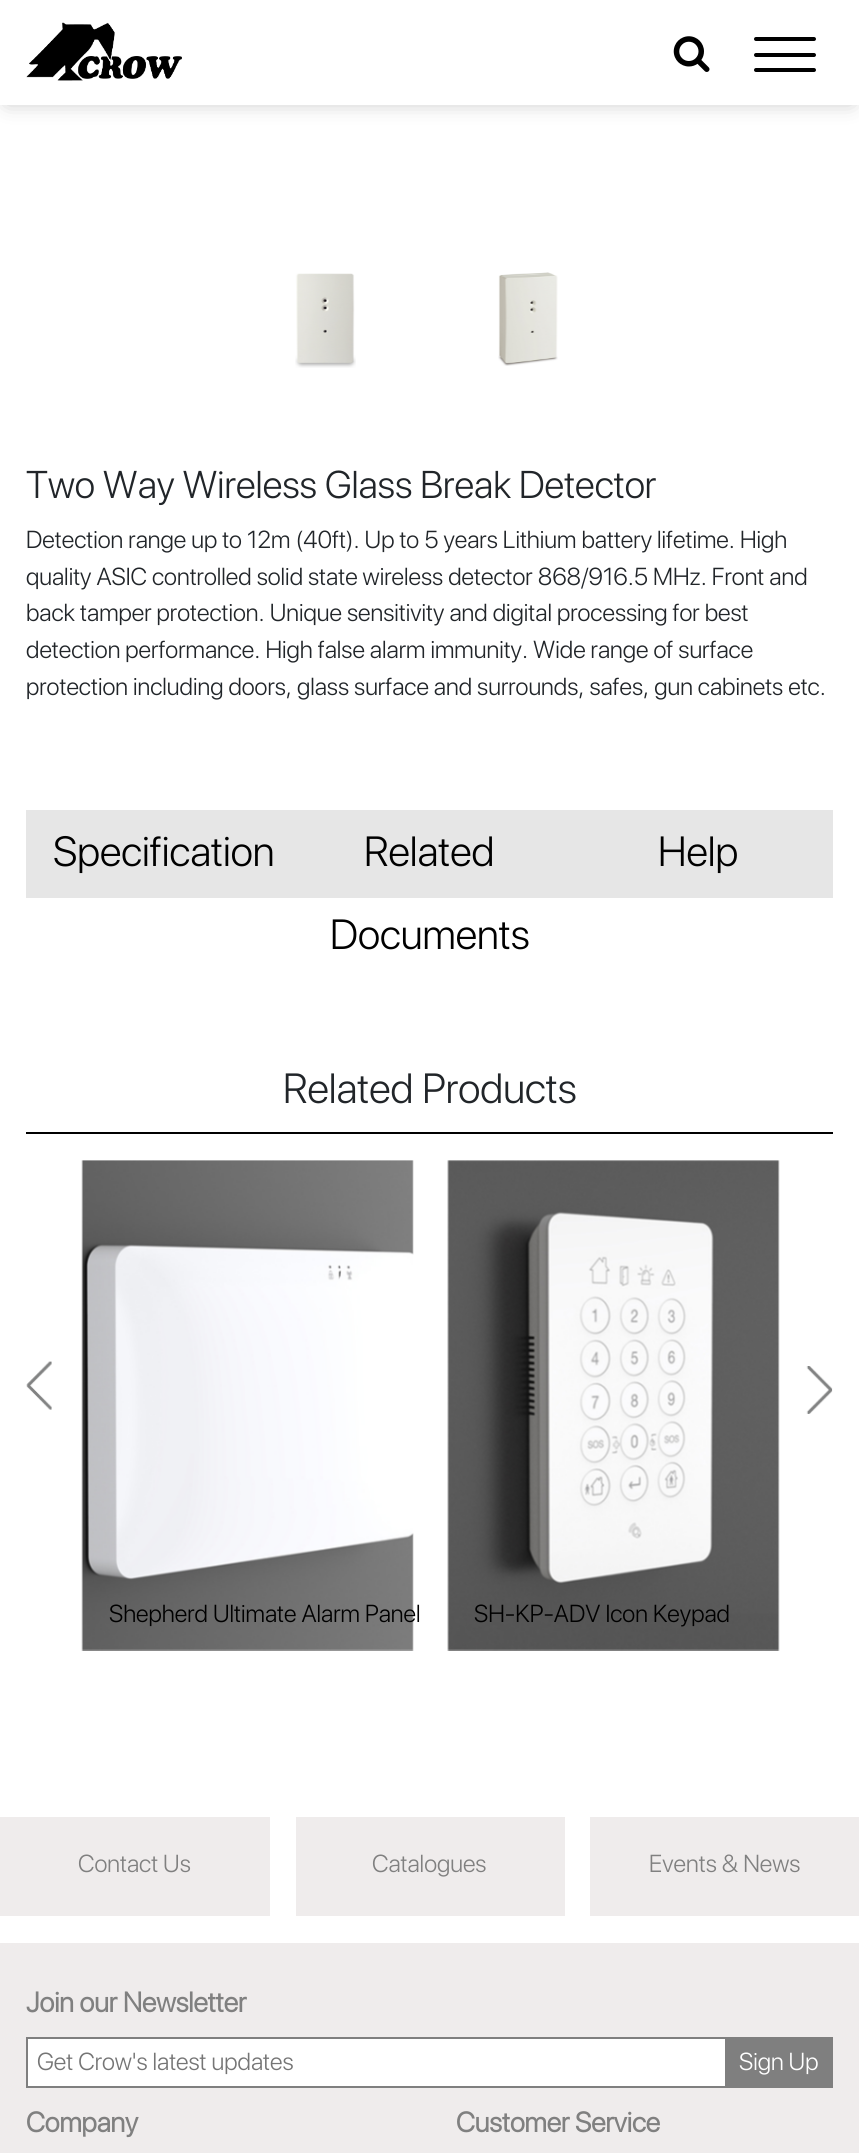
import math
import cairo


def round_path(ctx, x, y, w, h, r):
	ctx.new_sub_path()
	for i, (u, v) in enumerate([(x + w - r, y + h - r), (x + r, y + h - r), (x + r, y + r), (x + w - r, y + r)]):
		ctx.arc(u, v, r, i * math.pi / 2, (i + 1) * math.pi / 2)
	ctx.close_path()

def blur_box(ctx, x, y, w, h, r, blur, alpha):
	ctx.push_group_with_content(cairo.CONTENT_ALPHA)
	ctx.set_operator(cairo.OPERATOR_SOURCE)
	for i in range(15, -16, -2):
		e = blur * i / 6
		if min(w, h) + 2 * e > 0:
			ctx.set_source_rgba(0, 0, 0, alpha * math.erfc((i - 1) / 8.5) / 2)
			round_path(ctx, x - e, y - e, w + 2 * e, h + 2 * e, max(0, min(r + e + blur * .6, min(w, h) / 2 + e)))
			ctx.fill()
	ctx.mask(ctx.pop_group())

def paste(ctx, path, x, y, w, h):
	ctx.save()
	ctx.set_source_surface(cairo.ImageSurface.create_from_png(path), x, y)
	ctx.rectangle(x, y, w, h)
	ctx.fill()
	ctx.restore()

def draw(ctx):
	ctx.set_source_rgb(1, 1, 1)
	ctx.paint()
	ctx.set_source_rgb(0, 0, 0)
	blur_box(ctx, 7, 11, 845, 91, 0, 10.5, 0.25)
	ctx.set_source_rgb(1, 1, 1)
	ctx.rectangle(0, 0, 859, 105)
	ctx.fill()
	paste(ctx, 'media/1.png', 26, 22, 156, 59)
	paste(ctx, 'media/2.png', 673, 36, 37, 36)
	ctx.set_source_rgb(0, 0, 0)
	round_path(ctx, 754, 37, 62, 4, 2)
	ctx.fill()
	round_path(ctx, 754, 53, 62, 4, 2)
	ctx.fill()
	round_path(ctx, 754, 68, 62, 4, 2)
	ctx.fill()
	paste(ctx, 'media/3.png', 295, 273, 61, 95)
	paste(ctx, 'media/4.png', 498, 272, 60, 94)
	ctx.select_font_face('SF Pro Display Light')
	ctx.set_font_size(38.5)
	ctx.set_source_rgb(0.129, 0.145, 0.161)
	ctx.move_to(26, 498)
	ctx.show_text('Two Way Wireless Glass Break Detector')
	ctx.set_font_size(24.5)
	for x, y, s in [
		(26, 548, 'Detection range up to 12m (40ft). Up to 5 years Lithium battery lifetime. High'),
		(26, 585, 'quality ASIC controlled solid state wireless detector 868/916.5 MHz. Front and'),
		(26, 621, 'back tamper protection. Unique sensitivity and digital processing for best'),
		(26, 658, 'detection performance. High false alarm immunity. Wide range of surface'),
		(26, 695, 'protection including doors, glass surface and surrounds, safes, gun cabinets etc.'),
	]:
		ctx.move_to(x, y)
		ctx.show_text(s)
	ctx.set_source_rgb(0.902, 0.902, 0.902)
	ctx.rectangle(26, 810, 807, 88)
	ctx.fill()
	ctx.set_font_size(42)
	ctx.set_source_rgb(0, 0, 0)
	for x, y, s in [
		(53, 866, 'Specification'),
		(364, 866, 'Related'),
		(330, 949, 'Documents'),
		(658, 866, 'Help'),
	]:
		ctx.move_to(x, y)
		ctx.show_text(s)
	ctx.rectangle(26, 1132, 807, 2)
	ctx.fill()
	ctx.set_source_rgb(0.129, 0.145, 0.161)
	ctx.move_to(283, 1103)
	ctx.show_text('Related Products')
	paste(ctx, 'media/5.png', 26, 1361, 26, 49)
	paste(ctx, 'media/6.png', 806, 1366, 27, 48)
	paste(ctx, 'media/7.png', 81, 1160, 333, 491)
	ctx.set_font_size(24.5)
	ctx.set_source_rgb(0, 0, 0)
	ctx.move_to(109, 1622)
	ctx.show_text('Shepherd Ultimate Alarm Panel')
	paste(ctx, 'media/8.png', 447, 1160, 333, 491)
	ctx.move_to(474, 1622)
	ctx.show_text('SH-KP-ADV Icon Keypad')
	ctx.set_source_rgb(0.937, 0.925, 0.925)
	ctx.rectangle(0, 1817, 270, 99)
	ctx.fill()
	ctx.set_source_rgb(0.502, 0.502, 0.502)
	ctx.move_to(78, 1872)
	ctx.show_text('Contact Us')
	ctx.set_source_rgb(0.937, 0.925, 0.925)
	ctx.rectangle(296, 1817, 269, 99)
	ctx.fill()
	ctx.set_source_rgb(0.502, 0.502, 0.502)
	ctx.move_to(372, 1872)
	ctx.show_text('Catalogues')
	ctx.set_source_rgb(0.937, 0.925, 0.925)
	ctx.rectangle(590, 1817, 269, 99)
	ctx.fill()
	ctx.set_source_rgb(0.502, 0.502, 0.502)
	ctx.move_to(649, 1872)
	ctx.show_text('Events & News')
	ctx.set_source_rgb(0.937, 0.925, 0.925)
	ctx.rectangle(0, 1943, 859, 210)
	ctx.fill()
	ctx.select_font_face('SF Pro Display', cairo.FONT_SLANT_NORMAL, cairo.FONT_WEIGHT_BOLD)
	ctx.set_font_size(28)
	ctx.set_source_rgb(0.502, 0.502, 0.502)
	ctx.move_to(26, 2012)
	ctx.show_text('Join our Newsletter')
	ctx.set_source_rgb(1, 1, 1)
	ctx.rectangle(28, 2039, 697, 47)
	ctx.fill()
	ctx.rectangle(27, 2038, 805, 49)
	ctx.set_source_rgb(0.498, 0.498, 0.498)
	ctx.stroke()
	ctx.select_font_face('SF Pro Display Light')
	ctx.set_font_size(24.5)
	ctx.set_source_rgb(0.459, 0.459, 0.459)
	ctx.move_to(37, 2070)
	ctx.show_text('Get Crow\'s latest updates')
	ctx.set_source_rgb(0.498, 0.498, 0.498)
	ctx.rectangle(725, 2039, 106, 47)
	ctx.fill()
	ctx.set_source_rgb(1, 1, 1)
	ctx.move_to(739, 2070)
	ctx.show_text('Sign Up')
	ctx.select_font_face('SF Pro Display', cairo.FONT_SLANT_NORMAL, cairo.FONT_WEIGHT_BOLD)
	ctx.set_font_size(28)
	ctx.set_source_rgb(0.502, 0.502, 0.502)
	ctx.move_to(26, 2132)
	ctx.show_text('Company')
	ctx.move_to(456, 2132)
	ctx.show_text('Customer Service')


surface = cairo.ImageSurface(cairo.FORMAT_RGB24, 859, 2153)
ctx = cairo.Context(surface)
options = cairo.FontOptions()
options.set_hint_metrics(cairo.HINT_METRICS_OFF)
options.set_hint_style(cairo.HINT_STYLE_NONE)
ctx.set_font_options(options)
ctx.set_miter_limit(4)
draw(ctx)
surface.write_to_png('image.png')
